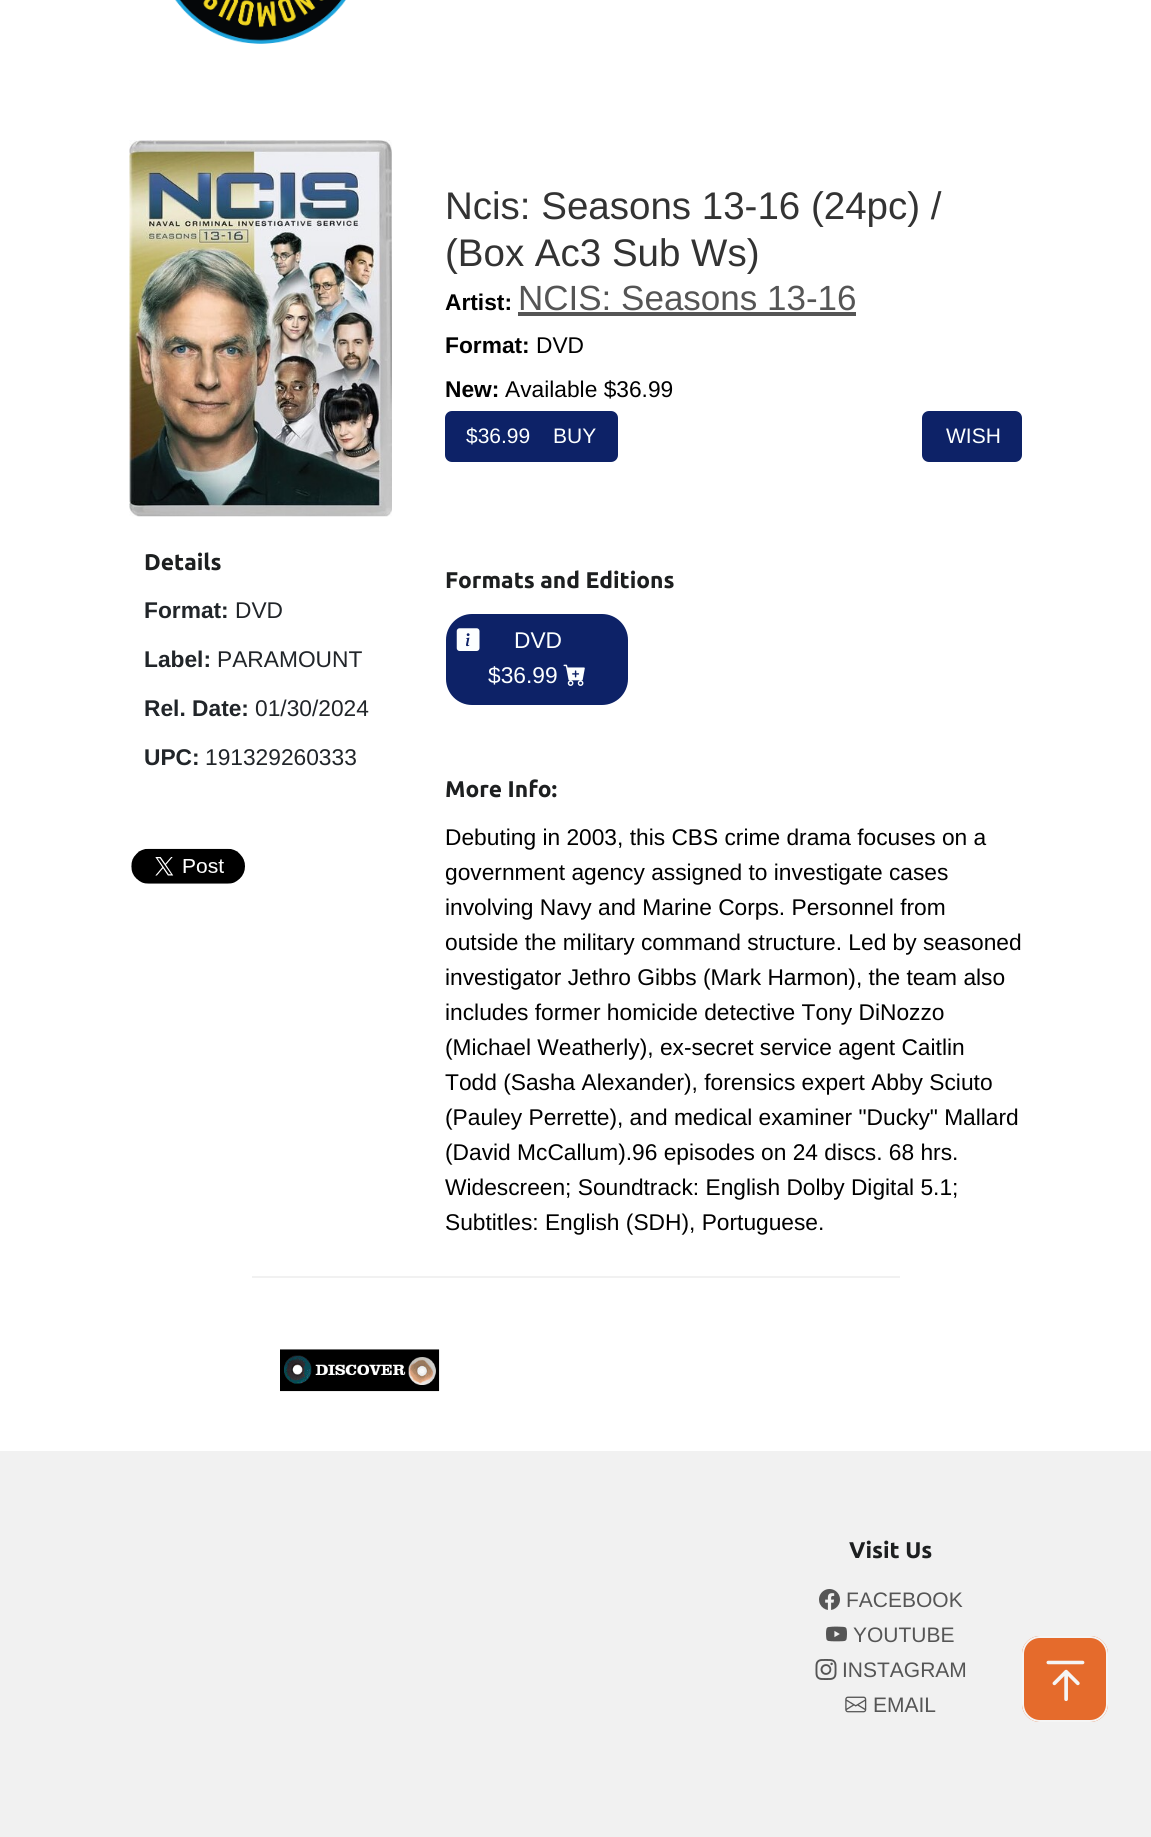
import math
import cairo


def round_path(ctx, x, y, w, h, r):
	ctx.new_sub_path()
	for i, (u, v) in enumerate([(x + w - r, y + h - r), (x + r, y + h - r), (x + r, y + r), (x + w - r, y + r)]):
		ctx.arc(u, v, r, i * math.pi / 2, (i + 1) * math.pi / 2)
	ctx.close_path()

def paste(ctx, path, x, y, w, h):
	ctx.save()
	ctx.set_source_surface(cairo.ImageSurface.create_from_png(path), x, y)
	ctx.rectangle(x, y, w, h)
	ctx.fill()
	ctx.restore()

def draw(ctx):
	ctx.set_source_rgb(1, 1, 1)
	ctx.paint()
	paste(ctx, 'media/1.png', 175, 0, 171, 44)
	paste(ctx, 'media/2.png', 129, 140, 263, 377)
	ctx.select_font_face('Ubuntu', cairo.FONT_SLANT_NORMAL, cairo.FONT_WEIGHT_BOLD)
	ctx.set_font_size(22.75)
	ctx.set_source_rgb(0.114, 0.122, 0.125)
	ctx.move_to(144, 570)
	ctx.show_text('Details')
	ctx.select_font_face('Liberation Sans', cairo.FONT_SLANT_NORMAL, cairo.FONT_WEIGHT_BOLD)
	ctx.set_source_rgb(0.129, 0.145, 0.161)
	ctx.move_to(144, 618)
	ctx.show_text('Format:')
	ctx.select_font_face('Liberation Sans')
	ctx.move_to(235, 618)
	ctx.show_text('DVD')
	ctx.select_font_face('Liberation Sans', cairo.FONT_SLANT_NORMAL, cairo.FONT_WEIGHT_BOLD)
	ctx.move_to(144, 667)
	ctx.show_text('Label:')
	ctx.select_font_face('Liberation Sans')
	ctx.move_to(217, 667)
	ctx.show_text('PARAMOUNT')
	ctx.select_font_face('Liberation Sans', cairo.FONT_SLANT_NORMAL, cairo.FONT_WEIGHT_BOLD)
	ctx.move_to(144, 716)
	ctx.show_text('Rel. Date:')
	ctx.select_font_face('Liberation Sans')
	ctx.move_to(255, 716)
	ctx.show_text('01/30/2024')
	ctx.select_font_face('Liberation Sans', cairo.FONT_SLANT_NORMAL, cairo.FONT_WEIGHT_BOLD)
	ctx.move_to(144, 765)
	ctx.show_text('UPC:')
	ctx.select_font_face('Liberation Sans')
	ctx.move_to(205, 765)
	ctx.show_text('191329260333')
	paste(ctx, 'media/3.png', 131, 848, 114, 36)
	ctx.set_font_size(38.5)
	ctx.set_source_rgb(0.2, 0.2, 0.2)
	ctx.move_to(445, 219)
	ctx.show_text('Ncis: Seasons 13-16 (24pc) /')
	ctx.move_to(445, 266)
	ctx.show_text('(Box Ac3 Sub Ws)')
	ctx.select_font_face('Liberation Sans', cairo.FONT_SLANT_NORMAL, cairo.FONT_WEIGHT_BOLD)
	ctx.set_font_size(22.75)
	ctx.set_source_rgb(0, 0, 0)
	ctx.move_to(445, 310)
	ctx.show_text('Artist:')
	ctx.set_source_rgb(0.333, 0.333, 0.333)
	ctx.rectangle(518, 312, 338, 4)
	ctx.fill()
	ctx.select_font_face('Liberation Sans')
	ctx.set_font_size(35)
	ctx.move_to(518, 310)
	ctx.show_text('NCIS: Seasons 13-16')
	ctx.select_font_face('Liberation Sans', cairo.FONT_SLANT_NORMAL, cairo.FONT_WEIGHT_BOLD)
	ctx.set_font_size(22.75)
	ctx.set_source_rgb(0, 0, 0)
	ctx.move_to(445, 353)
	ctx.show_text('Format:')
	ctx.select_font_face('Liberation Sans')
	ctx.move_to(536, 353)
	ctx.show_text('DVD')
	ctx.select_font_face('Liberation Sans', cairo.FONT_SLANT_NORMAL, cairo.FONT_WEIGHT_BOLD)
	ctx.move_to(445, 397)
	ctx.show_text('New:')
	ctx.select_font_face('Liberation Sans')
	ctx.move_to(505, 397)
	ctx.show_text('Available $36.99')
	ctx.set_source_rgb(0.051, 0.133, 0.404)
	round_path(ctx, 445, 411, 173, 51, 7)
	ctx.fill()
	ctx.set_font_size(21)
	ctx.set_source_rgb(0.988, 1, 1)
	ctx.move_to(466, 443)
	ctx.show_text('$36.99')
	ctx.move_to(553, 443)
	ctx.show_text('BUY')
	ctx.set_source_rgb(0.051, 0.133, 0.404)
	round_path(ctx, 922, 411, 100, 51, 7)
	ctx.fill()
	ctx.set_source_rgb(0.988, 1, 1)
	ctx.move_to(946, 443)
	ctx.show_text('WISH')
	ctx.select_font_face('Ubuntu', cairo.FONT_SLANT_NORMAL, cairo.FONT_WEIGHT_BOLD)
	ctx.set_font_size(22.75)
	ctx.set_source_rgb(0.114, 0.122, 0.125)
	ctx.move_to(445, 588)
	ctx.show_text('Formats and Editions')
	ctx.set_source_rgb(0.051, 0.133, 0.404)
	round_path(ctx, 447, 615, 180, 89, 25)
	ctx.fill_preserve()
	ctx.stroke()
	paste(ctx, 'media/4.png', 456, 628, 24, 23)
	ctx.select_font_face('Liberation Sans')
	ctx.set_source_rgb(0.988, 1, 1)
	ctx.move_to(514, 648)
	ctx.show_text('DVD')
	ctx.move_to(488, 683)
	ctx.show_text('$36.99')
	paste(ctx, 'media/5.png', 563, 664, 22, 22)
	ctx.select_font_face('Ubuntu', cairo.FONT_SLANT_NORMAL, cairo.FONT_WEIGHT_BOLD)
	ctx.set_source_rgb(0.114, 0.122, 0.125)
	ctx.move_to(445, 797)
	ctx.show_text('More Info:')
	ctx.select_font_face('Liberation Sans')
	ctx.set_source_rgb(0, 0, 0)
	for x, y, s in [
		(445, 845, 'Debuting in 2003, this CBS crime drama focuses on a'),
		(445, 880, 'government agency assigned to investigate cases'),
		(445, 915, 'involving Navy and Marine Corps. Personnel from'),
		(445, 950, 'outside the military command structure. Led by seasoned'),
		(445, 985, 'investigator Jethro Gibbs (Mark Harmon), the team also'),
		(445, 1020, 'includes former homicide detective Tony DiNozzo'),
		(445, 1055, '(Michael Weatherly), ex-secret service agent Caitlin'),
		(445, 1090, 'Todd (Sasha Alexander), forensics expert Abby Sciuto'),
		(445, 1125, '(Pauley Perrette), and medical examiner "Ducky" Mallard'),
		(445, 1160, '(David McCallum).96 episodes on 24 discs. 68 hrs.'),
		(445, 1195, 'Widescreen; Soundtrack: English Dolby Digital 5.1;'),
		(445, 1230, 'Subtitles: English (SDH), Portuguese.'),
	]:
		ctx.move_to(x, y)
		ctx.show_text(s)
	ctx.set_source_rgb(0.945, 0.945, 0.945)
	ctx.rectangle(252, 1276, 648, 2)
	ctx.fill()
	paste(ctx, 'media/6.png', 280, 1349, 160, 43)
	ctx.rectangle(0, 1451, 1151, 386)
	ctx.fill()
	ctx.select_font_face('Ubuntu', cairo.FONT_SLANT_NORMAL, cairo.FONT_WEIGHT_BOLD)
	ctx.set_source_rgb(0.114, 0.122, 0.125)
	ctx.move_to(849, 1558)
	ctx.show_text('Visit Us')
	paste(ctx, 'media/7.png', 819, 1589, 21, 21)
	ctx.select_font_face('Liberation Sans')
	ctx.set_font_size(21)
	ctx.set_source_rgb(0.333, 0.333, 0.333)
	ctx.move_to(846, 1607)
	ctx.show_text('FACEBOOK')
	paste(ctx, 'media/8.png', 826, 1626, 21, 16)
	ctx.move_to(853, 1642)
	ctx.show_text('YOUTUBE')
	paste(ctx, 'media/9.png', 815, 1659, 22, 21)
	ctx.move_to(842, 1677)
	ctx.show_text('INSTAGRAM')
	paste(ctx, 'media/10.png', 845, 1696, 22, 17)
	ctx.move_to(873, 1712)
	ctx.show_text('EMAIL')
	paste(ctx, 'media/11.png', 1022, 1636, 86, 86)


surface = cairo.ImageSurface(cairo.FORMAT_RGB24, 1151, 1837)
ctx = cairo.Context(surface)
options = cairo.FontOptions()
options.set_hint_metrics(cairo.HINT_METRICS_OFF)
options.set_hint_style(cairo.HINT_STYLE_NONE)
ctx.set_font_options(options)
ctx.set_miter_limit(4)
draw(ctx)
surface.write_to_png('image.png')
